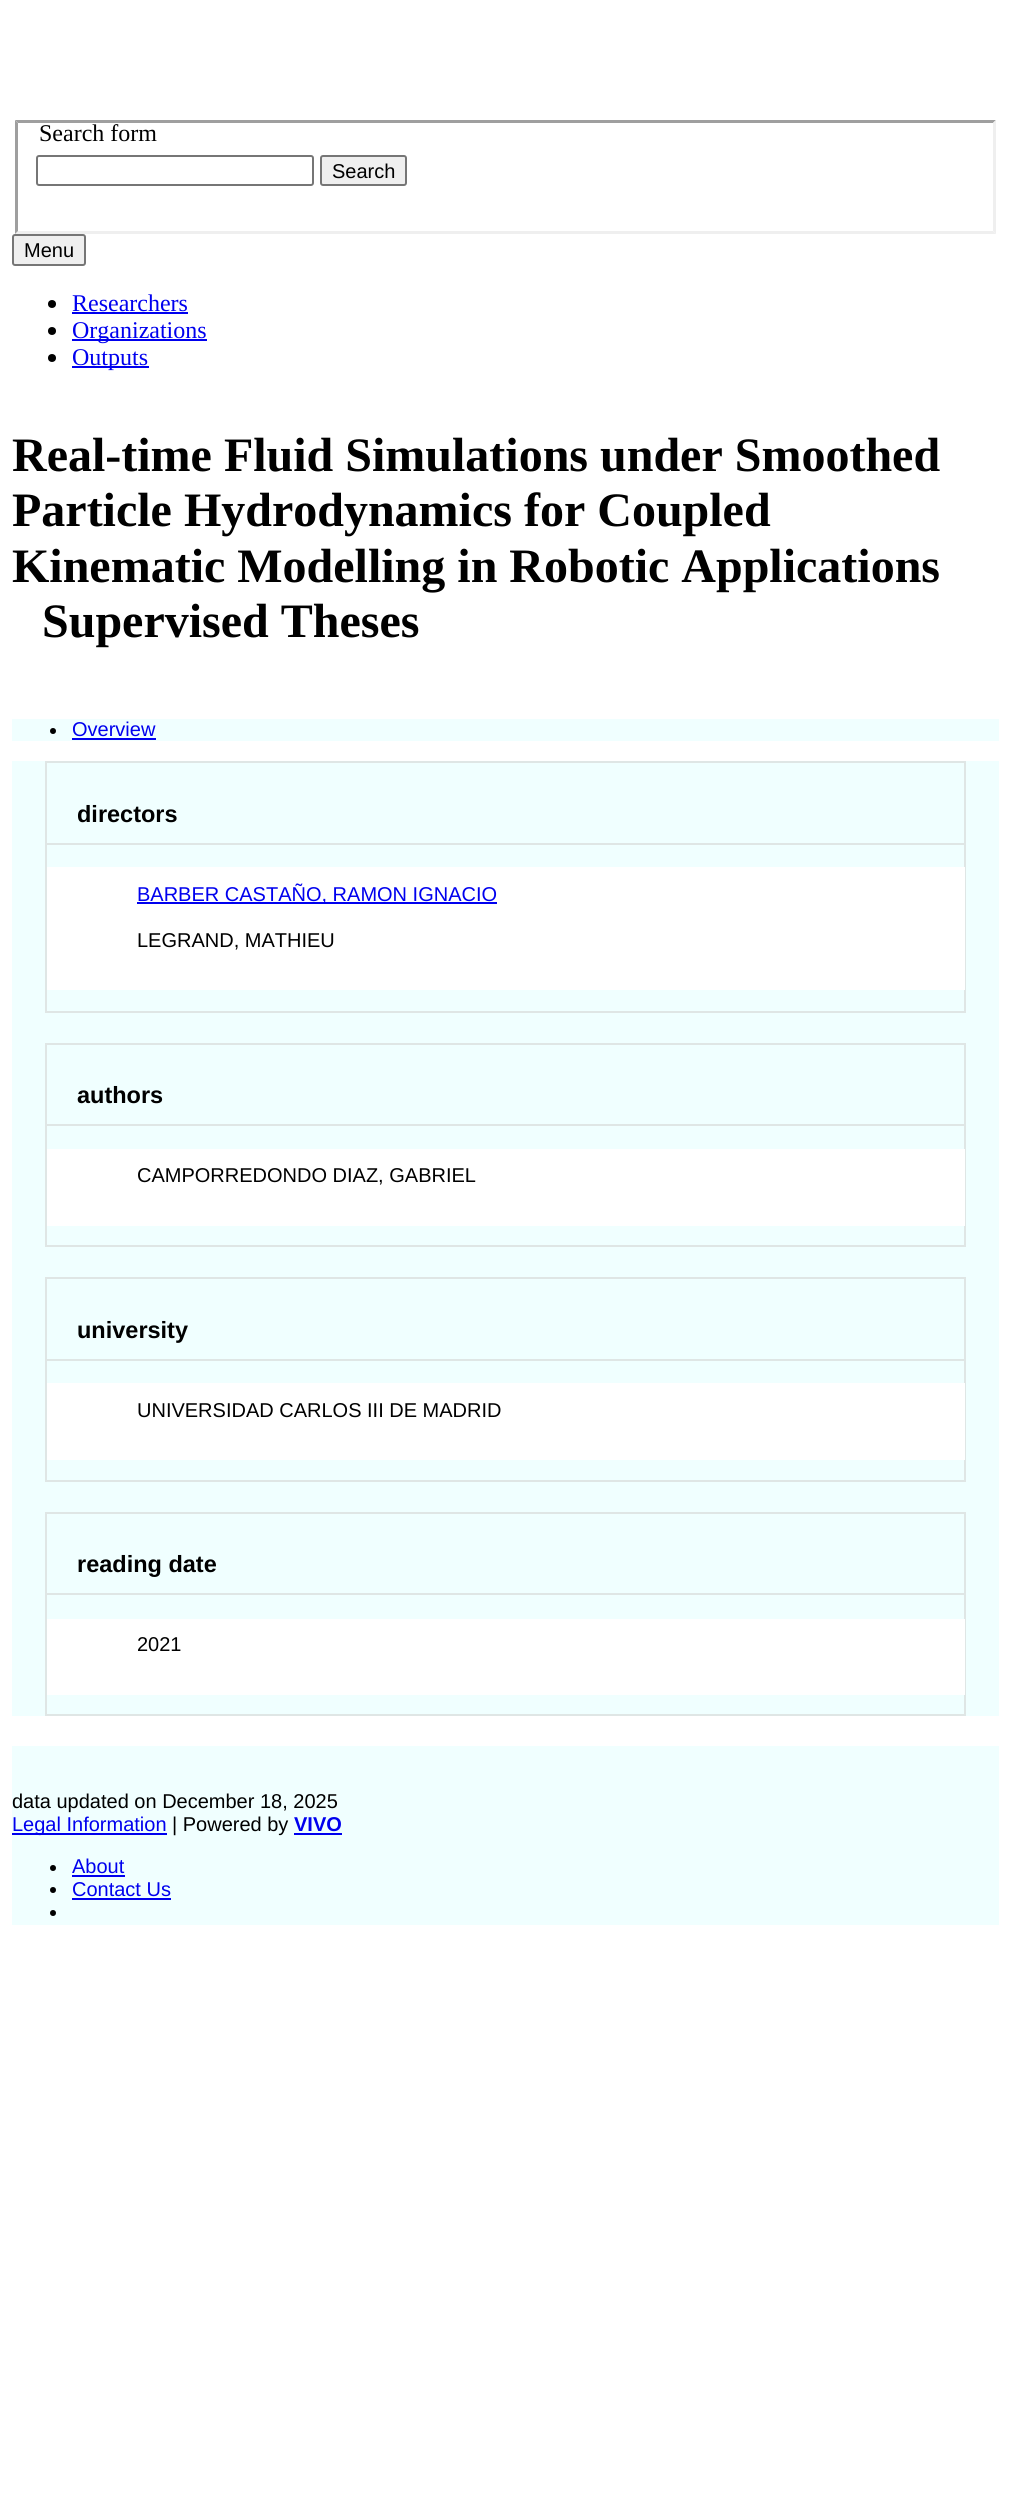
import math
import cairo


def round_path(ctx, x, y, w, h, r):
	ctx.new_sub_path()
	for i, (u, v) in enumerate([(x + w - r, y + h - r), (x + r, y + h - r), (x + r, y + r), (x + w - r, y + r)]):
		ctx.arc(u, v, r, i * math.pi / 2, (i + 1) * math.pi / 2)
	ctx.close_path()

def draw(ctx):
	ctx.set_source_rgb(1, 1, 1)
	ctx.paint()
	ctx.set_source_rgb(0.624, 0.624, 0.624)
	ctx.new_path()
	ctx.move_to(15, 120)
	ctx.line_to(996, 120)
	ctx.line_to(993, 123)
	ctx.line_to(18, 123)
	ctx.close_path()
	ctx.fill()
	ctx.set_source_rgb(0.937, 0.937, 0.937)
	ctx.new_path()
	ctx.move_to(996, 120)
	ctx.line_to(996, 234)
	ctx.line_to(993, 231)
	ctx.line_to(993, 123)
	ctx.close_path()
	ctx.fill()
	ctx.new_path()
	ctx.move_to(996, 234)
	ctx.line_to(15, 234)
	ctx.line_to(18, 231)
	ctx.line_to(993, 231)
	ctx.close_path()
	ctx.fill()
	ctx.set_source_rgb(0.624, 0.624, 0.624)
	ctx.new_path()
	ctx.move_to(15, 234)
	ctx.line_to(15, 120)
	ctx.line_to(18, 123)
	ctx.line_to(18, 231)
	ctx.close_path()
	ctx.fill()
	ctx.select_font_face('Liberation Serif')
	ctx.set_font_size(24)
	ctx.set_source_rgb(0, 0, 0)
	ctx.move_to(39, 141)
	ctx.show_text('Search form')
	round_path(ctx, 37, 156, 276, 29, 2)
	ctx.set_source_rgb(0.463, 0.463, 0.463)
	ctx.stroke()
	ctx.set_source_rgb(0.937, 0.937, 0.937)
	round_path(ctx, 321, 156, 85, 29, 2)
	ctx.fill_preserve()
	ctx.set_source_rgb(0.463, 0.463, 0.463)
	ctx.stroke()
	ctx.select_font_face('Liberation Sans')
	ctx.set_font_size(20)
	ctx.set_source_rgb(0, 0, 0)
	ctx.move_to(332, 178)
	ctx.show_text('Search')
	ctx.set_source_rgb(0.937, 0.937, 0.937)
	round_path(ctx, 13, 235, 72, 30, 2)
	ctx.fill_preserve()
	ctx.set_source_rgb(0.463, 0.463, 0.463)
	ctx.stroke()
	ctx.set_source_rgb(0, 0, 0)
	ctx.move_to(24, 257)
	ctx.show_text('Menu')
	ctx.new_path()
	ctx.arc(52, 304, 4, 0, 2 * math.pi)
	ctx.fill()
	ctx.select_font_face('Liberation Serif')
	ctx.set_font_size(24)
	ctx.set_source_rgb(0, 0, 0.933)
	ctx.move_to(72, 311)
	ctx.show_text('Researchers')
	ctx.rectangle(72, 312, 116, 2)
	ctx.fill()
	ctx.set_source_rgb(0, 0, 0)
	ctx.arc(52, 331, 4, 0, 2 * math.pi)
	ctx.fill()
	ctx.set_source_rgb(0, 0, 0.933)
	ctx.rectangle(72, 339, 135, 2)
	ctx.fill()
	ctx.move_to(72, 338)
	ctx.show_text('Organizations')
	ctx.set_source_rgb(0, 0, 0)
	ctx.new_path()
	ctx.arc(52, 358, 4, 0, 2 * math.pi)
	ctx.fill()
	ctx.set_source_rgb(0, 0, 0.933)
	ctx.rectangle(72, 366, 77, 2)
	ctx.fill()
	ctx.move_to(72, 365)
	ctx.show_text('Outputs')
	ctx.select_font_face('Liberation Serif', cairo.FONT_SLANT_NORMAL, cairo.FONT_WEIGHT_BOLD)
	ctx.set_font_size(48)
	ctx.set_source_rgb(0, 0, 0)
	for x, y, s in [
		(12, 471, 'Real-time Fluid Simulations under Smoothed'),
		(12, 526, 'Particle Hydrodynamics for Coupled'),
		(12, 582, 'Kinematic Modelling in Robotic Applications'),
		(42, 637, 'Supervised Theses'),
	]:
		ctx.move_to(x, y)
		ctx.show_text(s)
	ctx.set_source_rgb(0.941, 1, 1)
	ctx.rectangle(12, 719, 987, 22)
	ctx.fill()
	ctx.set_source_rgb(0, 0, 0)
	ctx.arc(53, 731, 3, 0, 2 * math.pi)
	ctx.fill()
	ctx.select_font_face('Liberation Sans')
	ctx.set_font_size(20)
	ctx.set_source_rgb(0, 0, 0.933)
	ctx.move_to(72, 736)
	ctx.show_text('Overview')
	ctx.rectangle(72, 738, 84, 2)
	ctx.fill()
	ctx.set_source_rgb(0.941, 1, 1)
	ctx.rectangle(12, 761, 987, 955)
	ctx.fill()
	ctx.rectangle(46, 762, 919, 250)
	ctx.set_source_rgb(0.875, 0.902, 0.898)
	ctx.stroke()
	ctx.rectangle(47, 843, 918, 2)
	ctx.fill()
	ctx.select_font_face('Liberation Sans', cairo.FONT_SLANT_NORMAL, cairo.FONT_WEIGHT_BOLD)
	ctx.set_font_size(23.5)
	ctx.set_source_rgb(0, 0, 0)
	ctx.move_to(77, 822)
	ctx.show_text('directors')
	ctx.set_source_rgb(1, 1, 1)
	ctx.rectangle(47, 867, 918, 123)
	ctx.fill()
	ctx.set_source_rgb(0, 0, 0.933)
	ctx.rectangle(137, 902, 360, 2)
	ctx.fill()
	ctx.select_font_face('Liberation Sans')
	ctx.set_font_size(20)
	ctx.move_to(137, 901)
	ctx.show_text('BARBER CASTAÑO, RAMON IGNACIO')
	ctx.set_source_rgb(0, 0, 0)
	ctx.move_to(137, 947)
	ctx.show_text('LEGRAND, MATHIEU')
	ctx.rectangle(46, 1044, 919, 202)
	ctx.set_source_rgb(0.875, 0.902, 0.898)
	ctx.stroke()
	ctx.rectangle(47, 1124, 918, 2)
	ctx.fill()
	ctx.select_font_face('Liberation Sans', cairo.FONT_SLANT_NORMAL, cairo.FONT_WEIGHT_BOLD)
	ctx.set_font_size(23.5)
	ctx.set_source_rgb(0, 0, 0)
	ctx.move_to(77, 1103)
	ctx.show_text('authors')
	ctx.set_source_rgb(1, 1, 1)
	ctx.rectangle(47, 1149, 918, 77)
	ctx.fill()
	ctx.select_font_face('Liberation Sans')
	ctx.set_font_size(20)
	ctx.set_source_rgb(0, 0, 0)
	ctx.move_to(137, 1182)
	ctx.show_text('CAMPORREDONDO DIAZ, GABRIEL')
	ctx.rectangle(46, 1278, 919, 203)
	ctx.set_source_rgb(0.875, 0.902, 0.898)
	ctx.stroke()
	ctx.rectangle(47, 1359, 918, 2)
	ctx.fill()
	ctx.select_font_face('Liberation Sans', cairo.FONT_SLANT_NORMAL, cairo.FONT_WEIGHT_BOLD)
	ctx.set_font_size(23.5)
	ctx.set_source_rgb(0, 0, 0)
	ctx.move_to(77, 1338)
	ctx.show_text('university')
	ctx.set_source_rgb(1, 1, 1)
	ctx.rectangle(47, 1383, 918, 77)
	ctx.fill()
	ctx.select_font_face('Liberation Sans')
	ctx.set_font_size(20)
	ctx.set_source_rgb(0, 0, 0)
	ctx.move_to(137, 1417)
	ctx.show_text('UNIVERSIDAD CARLOS III DE MADRID')
	ctx.rectangle(46, 1513, 919, 202)
	ctx.set_source_rgb(0.875, 0.902, 0.898)
	ctx.stroke()
	ctx.rectangle(47, 1593, 918, 2)
	ctx.fill()
	ctx.select_font_face('Liberation Sans', cairo.FONT_SLANT_NORMAL, cairo.FONT_WEIGHT_BOLD)
	ctx.set_font_size(23.5)
	ctx.set_source_rgb(0, 0, 0)
	ctx.move_to(77, 1572)
	ctx.show_text('reading date')
	ctx.set_source_rgb(1, 1, 1)
	ctx.rectangle(47, 1619, 918, 76)
	ctx.fill()
	ctx.select_font_face('Liberation Sans')
	ctx.set_font_size(20)
	ctx.set_source_rgb(0, 0, 0)
	ctx.move_to(137, 1651)
	ctx.show_text('2021')
	ctx.set_source_rgb(0.941, 1, 1)
	ctx.rectangle(12, 1746, 987, 179)
	ctx.fill()
	ctx.set_source_rgb(0, 0, 0)
	ctx.move_to(12, 1808)
	ctx.show_text('data updated on December 18, 2025')
	ctx.set_source_rgb(0, 0, 0.933)
	ctx.rectangle(12, 1833, 155, 2)
	ctx.fill()
	ctx.move_to(12, 1831)
	ctx.show_text('Legal Information')
	ctx.set_source_rgb(0, 0, 0)
	ctx.move_to(172, 1831)
	ctx.show_text('| Powered by')
	ctx.select_font_face('Liberation Sans', cairo.FONT_SLANT_NORMAL, cairo.FONT_WEIGHT_BOLD)
	ctx.set_source_rgb(0, 0, 0.933)
	ctx.move_to(294, 1831)
	ctx.show_text('VIVO')
	ctx.rectangle(294, 1833, 48, 2)
	ctx.fill()
	ctx.set_source_rgb(0, 0, 0)
	ctx.arc(53, 1868, 3, 0, 2 * math.pi)
	ctx.fill()
	ctx.select_font_face('Liberation Sans')
	ctx.set_source_rgb(0, 0, 0.933)
	ctx.move_to(72, 1873)
	ctx.show_text('About')
	ctx.rectangle(72, 1875, 53, 2)
	ctx.fill()
	ctx.set_source_rgb(0, 0, 0)
	ctx.arc(53, 1890, 3, 0, 2 * math.pi)
	ctx.fill()
	ctx.set_source_rgb(0, 0, 0.933)
	ctx.move_to(72, 1896)
	ctx.show_text('Contact Us')
	ctx.rectangle(72, 1898, 99, 2)
	ctx.fill()
	ctx.set_source_rgb(0, 0, 0)
	ctx.arc(53, 1913, 3, 0, 2 * math.pi)
	ctx.fill()


surface = cairo.ImageSurface(cairo.FORMAT_RGB24, 1010, 2500)
ctx = cairo.Context(surface)
options = cairo.FontOptions()
options.set_hint_metrics(cairo.HINT_METRICS_OFF)
options.set_hint_style(cairo.HINT_STYLE_NONE)
ctx.set_font_options(options)
ctx.set_miter_limit(4)
draw(ctx)
surface.write_to_png('image.png')
